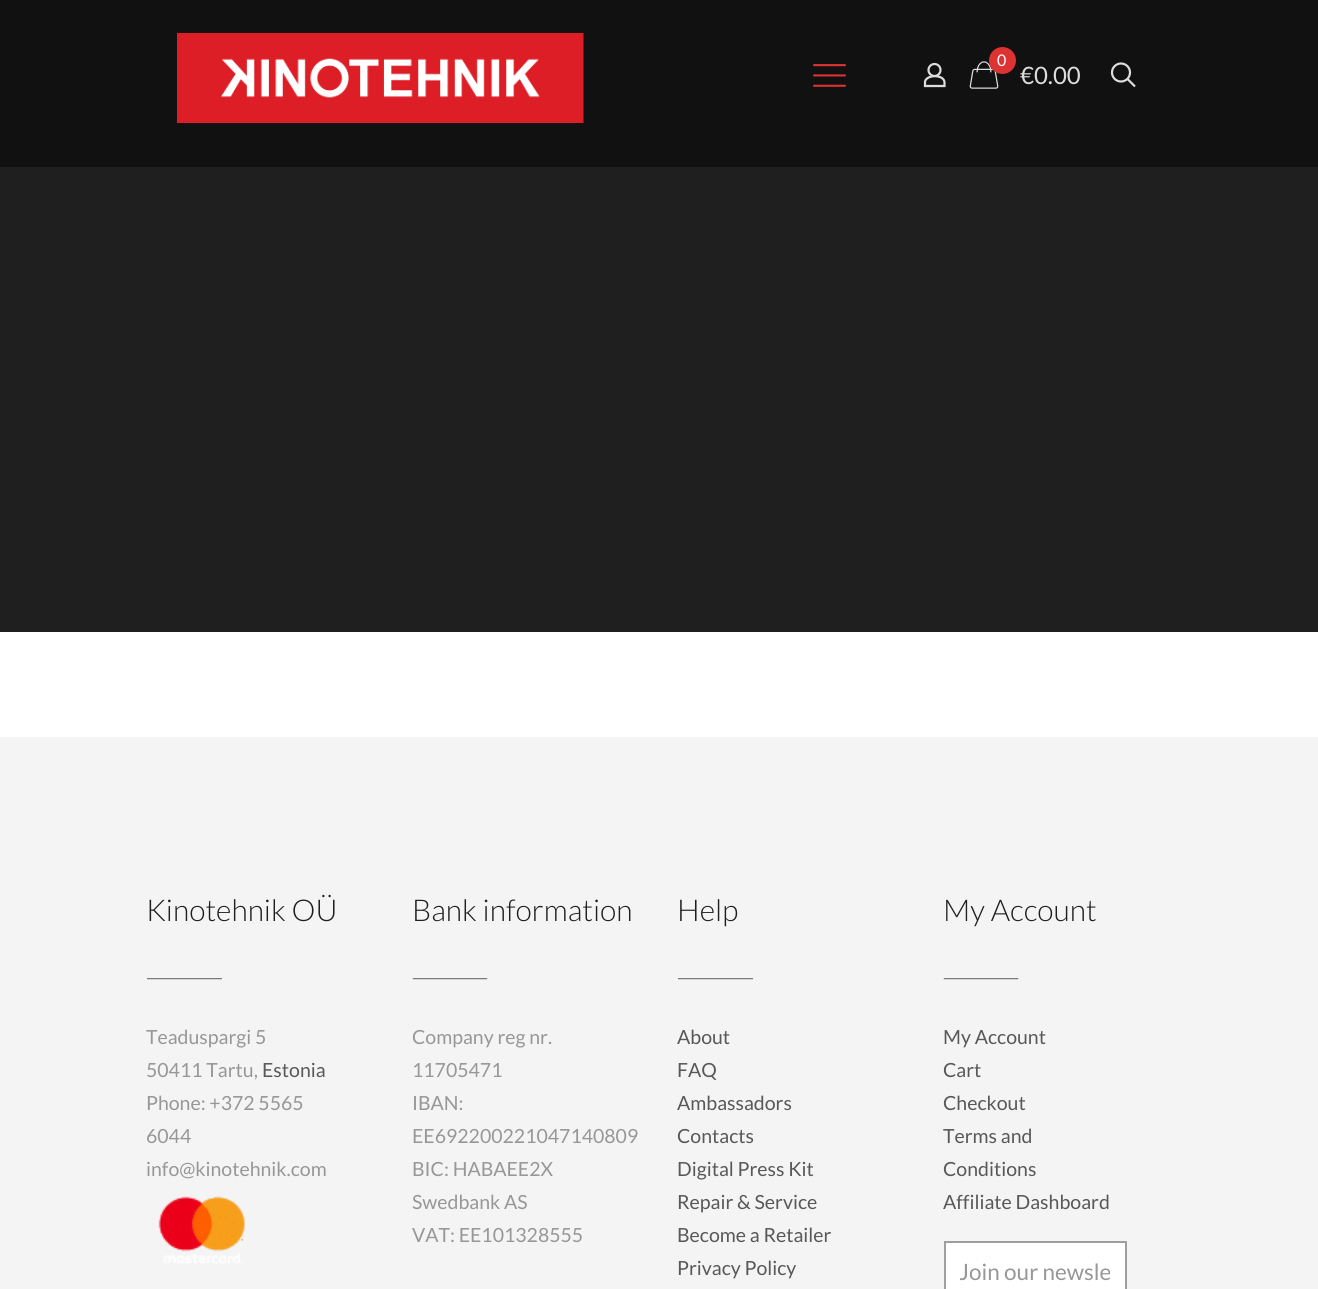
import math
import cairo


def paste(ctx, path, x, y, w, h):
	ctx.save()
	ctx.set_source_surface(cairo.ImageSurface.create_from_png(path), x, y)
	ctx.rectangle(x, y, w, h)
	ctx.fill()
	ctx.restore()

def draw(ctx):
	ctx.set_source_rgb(1, 1, 1)
	ctx.paint()
	ctx.set_source_rgb(0.122, 0.122, 0.122)
	ctx.rectangle(0, 167, 1318, 465)
	ctx.fill()
	ctx.set_source_rgb(0.067, 0.067, 0.067)
	ctx.rectangle(0, 0, 1318, 167)
	ctx.fill()
	paste(ctx, 'media/1.png', 177, 33, 407, 90)
	paste(ctx, 'media/2.png', 813, 64, 33, 23)
	ctx.arc(934.5, 70, 6, 0, 2 * math.pi)
	ctx.set_source_rgb(0.867, 0.867, 0.867)
	ctx.set_line_width(2.2)
	ctx.stroke()
	ctx.new_path()
	ctx.move_to(944.5, 82.5)
	ctx.line_to(944.5, 86)
	ctx.line_to(925, 86)
	ctx.line_to(925, 81.5)
	ctx.curve_to(927, 74, 944.5, 74.5, 944.5, 82.5)
	ctx.close_path()
	ctx.stroke()
	paste(ctx, 'media/3.png', 969, 61, 30, 28)
	ctx.set_source_rgb(0.867, 0.2, 0.2)
	ctx.arc(1002.5, 60.5, 13.5, 0, 2 * math.pi)
	ctx.fill()
	ctx.select_font_face('Lato')
	ctx.set_font_size(16)
	ctx.set_source_rgb(1, 1, 1)
	ctx.move_to(997, 66)
	ctx.show_text('0')
	ctx.set_font_size(24)
	ctx.set_source_rgb(0.867, 0.867, 0.867)
	ctx.move_to(1020, 84)
	ctx.show_text('€0.00')
	ctx.new_path()
	ctx.arc(1121, 72.5, 9, 0, 2 * math.pi)
	ctx.stroke()
	ctx.new_path()
	ctx.move_to(1127.5, 79)
	ctx.line_to(1135, 86.5)
	ctx.stroke()
	ctx.set_source_rgb(0.957, 0.957, 0.957)
	ctx.rectangle(0, 737, 1318, 552)
	ctx.fill()
	ctx.select_font_face('Lato Light')
	ctx.set_font_size(30)
	ctx.set_source_rgb(0.122, 0.122, 0.122)
	ctx.move_to(146, 921)
	ctx.show_text('Kinotehnik OÜ')
	paste(ctx, 'media/4.png', 147, 978, 75, 2)
	ctx.select_font_face('Lato')
	ctx.set_font_size(19.5)
	ctx.set_source_rgb(0.592, 0.592, 0.592)
	ctx.move_to(146, 1044)
	ctx.show_text('Teaduspargi 5')
	ctx.move_to(146, 1077)
	ctx.show_text('50411 Tartu,')
	ctx.set_source_rgb(0.345, 0.345, 0.345)
	ctx.move_to(262, 1077)
	ctx.show_text('Estonia')
	ctx.set_source_rgb(0.592, 0.592, 0.592)
	for x, y, s in [
		(146, 1110, 'Phone: +372 5565'),
		(146, 1143, '6044'),
		(146, 1176, 'info@kinotehnik.com'),
	]:
		ctx.move_to(x, y)
		ctx.show_text(s)
	paste(ctx, 'media/5.png', 158, 1196, 87, 68)
	ctx.select_font_face('Lato Light')
	ctx.set_font_size(30)
	ctx.set_source_rgb(0.122, 0.122, 0.122)
	ctx.move_to(412, 921)
	ctx.show_text('Bank information')
	paste(ctx, 'media/6.png', 412, 978, 76, 2)
	ctx.select_font_face('Lato')
	ctx.set_font_size(19.5)
	ctx.set_source_rgb(0.592, 0.592, 0.592)
	for x, y, s in [
		(412, 1044, 'Company reg nr.'),
		(412, 1077, '11705471'),
		(412, 1110, 'IBAN:'),
		(412, 1143, 'EE692200221047140809'),
		(412, 1176, 'BIC: HABAEE2X'),
		(412, 1209, 'Swedbank AS'),
		(412, 1242, 'VAT: EE101328555'),
	]:
		ctx.move_to(x, y)
		ctx.show_text(s)
	ctx.select_font_face('Lato Light')
	ctx.set_font_size(30)
	ctx.set_source_rgb(0.122, 0.122, 0.122)
	ctx.move_to(677, 921)
	ctx.show_text('Help')
	paste(ctx, 'media/4.png', 678, 978, 75, 2)
	ctx.select_font_face('Lato')
	ctx.set_font_size(19.5)
	ctx.set_source_rgb(0.345, 0.345, 0.345)
	for x, y, s in [
		(677, 1044, 'About'),
		(677, 1077, 'FAQ'),
		(677, 1110, 'Ambassadors'),
		(677, 1143, 'Contacts'),
		(677, 1176, 'Digital Press Kit'),
		(677, 1209, 'Repair & Service'),
		(677, 1242, 'Become a Retailer'),
		(677, 1275, 'Privacy Policy'),
	]:
		ctx.move_to(x, y)
		ctx.show_text(s)
	ctx.select_font_face('Lato Light')
	ctx.set_font_size(30)
	ctx.set_source_rgb(0.122, 0.122, 0.122)
	ctx.move_to(943, 921)
	ctx.show_text('My Account')
	paste(ctx, 'media/6.png', 943, 978, 76, 2)
	ctx.select_font_face('Lato')
	ctx.set_font_size(19.5)
	ctx.set_source_rgb(0.345, 0.345, 0.345)
	for x, y, s in [
		(943, 1044, 'My Account'),
		(943, 1077, 'Cart'),
		(943, 1110, 'Checkout'),
		(943, 1143, 'Terms and'),
		(943, 1176, 'Conditions'),
		(943, 1209, 'Affiliate Dashboard'),
	]:
		ctx.move_to(x, y)
		ctx.show_text(s)
	ctx.set_source_rgb(1, 1, 1)
	ctx.rectangle(945, 1242, 181, 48)
	ctx.fill_preserve()
	ctx.set_source_rgb(0.624, 0.624, 0.624)
	ctx.set_line_width(2)
	ctx.stroke()
	ctx.save()
	ctx.rectangle(960, 1257, 150, 27)
	ctx.clip()
	ctx.set_font_size(22.5)
	ctx.set_source_rgb(0.592, 0.592, 0.592)
	ctx.move_to(959, 1280)
	ctx.show_text('Join our newsle')
	ctx.restore()


surface = cairo.ImageSurface(cairo.FORMAT_RGB24, 1318, 1289)
ctx = cairo.Context(surface)
options = cairo.FontOptions()
options.set_hint_metrics(cairo.HINT_METRICS_OFF)
options.set_hint_style(cairo.HINT_STYLE_NONE)
ctx.set_font_options(options)
ctx.set_miter_limit(4)
draw(ctx)
surface.write_to_png('image.png')
